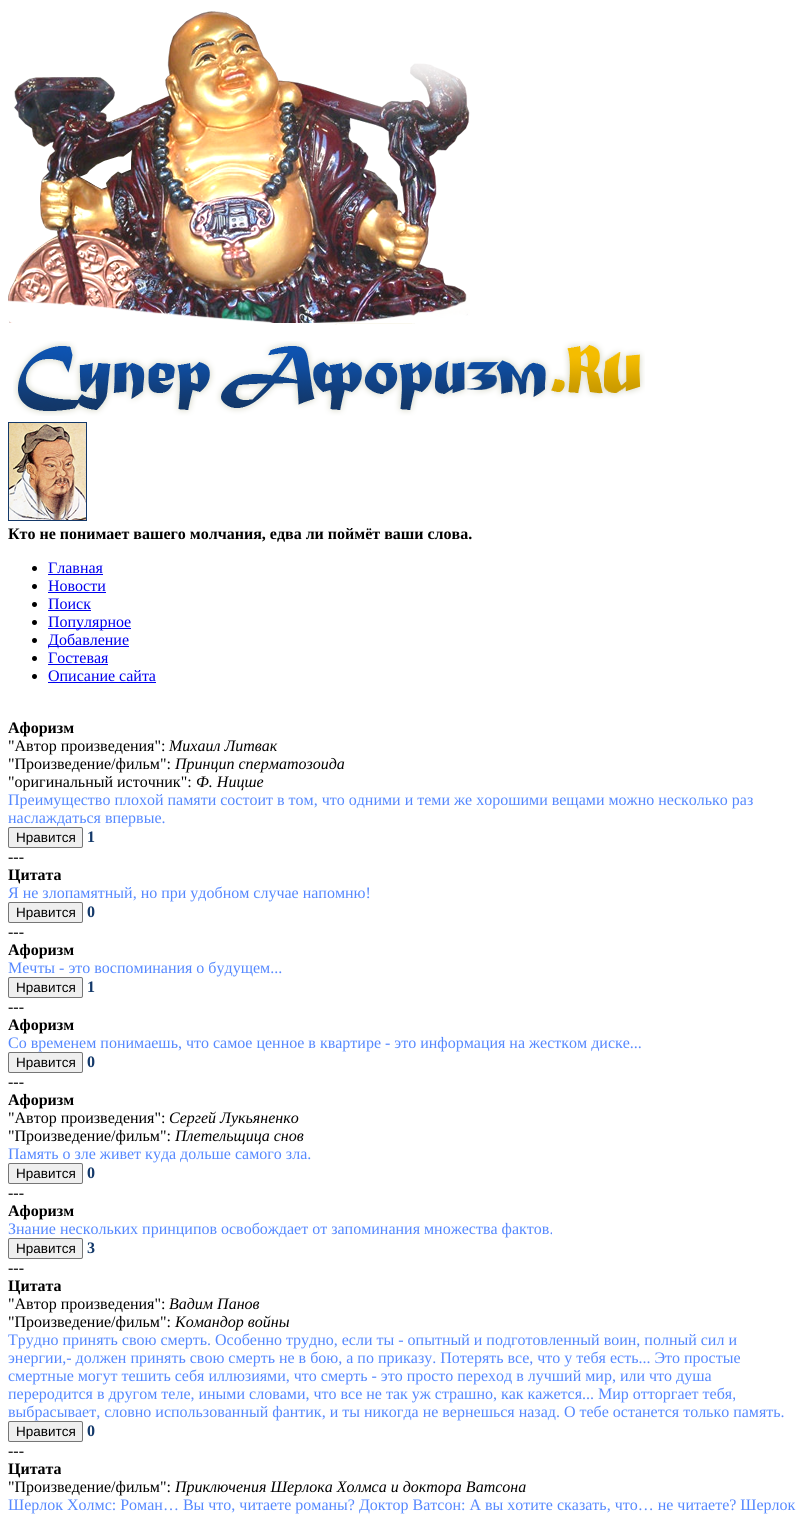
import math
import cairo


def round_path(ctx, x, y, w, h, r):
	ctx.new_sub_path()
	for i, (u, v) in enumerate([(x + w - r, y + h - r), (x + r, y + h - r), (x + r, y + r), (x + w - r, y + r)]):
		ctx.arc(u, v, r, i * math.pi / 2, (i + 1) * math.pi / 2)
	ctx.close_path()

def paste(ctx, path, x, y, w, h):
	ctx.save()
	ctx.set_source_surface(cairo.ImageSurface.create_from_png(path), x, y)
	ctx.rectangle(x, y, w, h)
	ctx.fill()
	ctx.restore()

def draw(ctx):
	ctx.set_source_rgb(1, 1, 1)
	ctx.paint()
	paste(ctx, 'media/1.png', 8, 11, 462, 318)
	paste(ctx, 'media/2.png', 13, 341, 632, 75)
	paste(ctx, 'media/3.png', 8, 422, 79, 99)
	ctx.select_font_face('Liberation Serif', cairo.FONT_SLANT_NORMAL, cairo.FONT_WEIGHT_BOLD)
	ctx.set_font_size(16)
	ctx.set_source_rgb(0, 0, 0)
	ctx.move_to(8, 539)
	ctx.show_text('Кто не понимает вашего молчания, едва ли поймёт ваши слова.')
	ctx.new_path()
	ctx.arc(34.5, 568.5, 2.5, 0, 2 * math.pi)
	ctx.fill()
	ctx.select_font_face('Liberation Serif')
	ctx.set_source_rgb(0, 0, 0.933)
	ctx.move_to(48, 573)
	ctx.show_text('Главная')
	ctx.rectangle(48, 574, 55, 1)
	ctx.fill()
	ctx.set_source_rgb(0, 0, 0)
	ctx.arc(34.5, 586.5, 2.5, 0, 2 * math.pi)
	ctx.fill()
	ctx.set_source_rgb(0, 0, 0.933)
	ctx.move_to(48, 591)
	ctx.show_text('Новости')
	ctx.rectangle(48, 592, 58, 1)
	ctx.fill()
	ctx.set_source_rgb(0, 0, 0)
	ctx.arc(34.5, 604.5, 2.5, 0, 2 * math.pi)
	ctx.fill()
	ctx.set_source_rgb(0, 0, 0.933)
	ctx.move_to(48, 609)
	ctx.show_text('Поиск')
	ctx.rectangle(48, 610, 43, 1)
	ctx.fill()
	ctx.set_source_rgb(0, 0, 0)
	ctx.arc(34.5, 622.5, 2.5, 0, 2 * math.pi)
	ctx.fill()
	ctx.set_source_rgb(0, 0, 0.933)
	ctx.rectangle(48, 628, 83, 1)
	ctx.fill()
	ctx.move_to(48, 627)
	ctx.show_text('Популярное')
	ctx.set_source_rgb(0, 0, 0)
	ctx.new_path()
	ctx.arc(34.5, 640.5, 2.5, 0, 2 * math.pi)
	ctx.fill()
	ctx.set_source_rgb(0, 0, 0.933)
	ctx.rectangle(48, 646, 81, 1)
	ctx.fill()
	ctx.move_to(48, 645)
	ctx.show_text('Добавление')
	ctx.set_source_rgb(0, 0, 0)
	ctx.new_path()
	ctx.arc(34.5, 658.5, 2.5, 0, 2 * math.pi)
	ctx.fill()
	ctx.set_source_rgb(0, 0, 0.933)
	ctx.move_to(48, 663)
	ctx.show_text('Гостевая')
	ctx.rectangle(48, 664, 60, 1)
	ctx.fill()
	ctx.set_source_rgb(0, 0, 0)
	ctx.arc(34.5, 676.5, 2.5, 0, 2 * math.pi)
	ctx.fill()
	ctx.set_source_rgb(0, 0, 0.933)
	ctx.move_to(48, 681)
	ctx.show_text('Описание сайта')
	ctx.rectangle(48, 682, 108, 1)
	ctx.fill()
	ctx.select_font_face('Liberation Serif', cairo.FONT_SLANT_NORMAL, cairo.FONT_WEIGHT_BOLD)
	ctx.set_source_rgb(0, 0, 0)
	ctx.move_to(8, 733)
	ctx.show_text('Афоризм')
	ctx.select_font_face('Liberation Serif')
	ctx.move_to(8, 751)
	ctx.show_text('"Автор произведения":')
	ctx.select_font_face('Liberation Serif', cairo.FONT_SLANT_ITALIC)
	ctx.move_to(169, 751)
	ctx.show_text('Михаил Литвак')
	ctx.select_font_face('Liberation Serif')
	ctx.move_to(8, 769)
	ctx.show_text('"Произведение/фильм":')
	ctx.select_font_face('Liberation Serif', cairo.FONT_SLANT_ITALIC)
	ctx.move_to(175, 769)
	ctx.show_text('Принцип сперматозоида')
	ctx.select_font_face('Liberation Serif')
	ctx.move_to(8, 787)
	ctx.show_text('"оригинальный источник":')
	ctx.select_font_face('Liberation Serif', cairo.FONT_SLANT_ITALIC)
	ctx.move_to(196, 787)
	ctx.show_text('Ф. Ницше')
	ctx.select_font_face('Liberation Serif')
	ctx.set_source_rgb(0.333, 0.533, 1)
	ctx.move_to(8, 805)
	ctx.show_text('Преимущество плохой памяти состоит в том, что одними и теми же хорошими вещами можно несколько раз')
	ctx.move_to(8, 823)
	ctx.show_text('наслаждаться впервые.')
	ctx.set_source_rgb(0.937, 0.937, 0.937)
	round_path(ctx, 8.5, 827.5, 74, 20, 1.5)
	ctx.fill_preserve()
	ctx.set_source_rgb(0.463, 0.463, 0.463)
	ctx.set_line_width(1)
	ctx.stroke()
	ctx.select_font_face('Liberation Sans')
	ctx.set_font_size(13.5)
	ctx.set_source_rgb(0, 0, 0)
	ctx.move_to(16, 842)
	ctx.show_text('Нравится')
	ctx.select_font_face('Liberation Serif', cairo.FONT_SLANT_NORMAL, cairo.FONT_WEIGHT_BOLD)
	ctx.set_font_size(16)
	ctx.set_source_rgb(0.075, 0.22, 0.412)
	ctx.move_to(87, 842)
	ctx.show_text('1')
	ctx.select_font_face('Liberation Serif')
	ctx.set_source_rgb(0, 0, 0)
	ctx.move_to(8, 862)
	ctx.show_text('---')
	ctx.select_font_face('Liberation Serif', cairo.FONT_SLANT_NORMAL, cairo.FONT_WEIGHT_BOLD)
	ctx.move_to(8, 880)
	ctx.show_text('Цитата')
	ctx.select_font_face('Liberation Serif')
	ctx.set_source_rgb(0.333, 0.533, 1)
	ctx.move_to(8, 898)
	ctx.show_text('Я не злопамятный, но при удобном случае напомню!')
	ctx.set_source_rgb(0.937, 0.937, 0.937)
	round_path(ctx, 8.5, 902.5, 74, 20, 1.5)
	ctx.fill_preserve()
	ctx.set_source_rgb(0.463, 0.463, 0.463)
	ctx.stroke()
	ctx.select_font_face('Liberation Sans')
	ctx.set_font_size(13.5)
	ctx.set_source_rgb(0, 0, 0)
	ctx.move_to(16, 917)
	ctx.show_text('Нравится')
	ctx.select_font_face('Liberation Serif', cairo.FONT_SLANT_NORMAL, cairo.FONT_WEIGHT_BOLD)
	ctx.set_font_size(16)
	ctx.set_source_rgb(0.075, 0.22, 0.412)
	ctx.move_to(87, 917)
	ctx.show_text('0')
	ctx.select_font_face('Liberation Serif')
	ctx.set_source_rgb(0, 0, 0)
	ctx.move_to(8, 937)
	ctx.show_text('---')
	ctx.select_font_face('Liberation Serif', cairo.FONT_SLANT_NORMAL, cairo.FONT_WEIGHT_BOLD)
	ctx.move_to(8, 955)
	ctx.show_text('Афоризм')
	ctx.select_font_face('Liberation Serif')
	ctx.set_source_rgb(0.333, 0.533, 1)
	ctx.move_to(8, 973)
	ctx.show_text('Мечты - это воспоминания о будущем...')
	ctx.set_source_rgb(0.937, 0.937, 0.937)
	round_path(ctx, 8.5, 977.5, 74, 20, 1.5)
	ctx.fill_preserve()
	ctx.set_source_rgb(0.463, 0.463, 0.463)
	ctx.stroke()
	ctx.select_font_face('Liberation Sans')
	ctx.set_font_size(13.5)
	ctx.set_source_rgb(0, 0, 0)
	ctx.move_to(16, 992)
	ctx.show_text('Нравится')
	ctx.select_font_face('Liberation Serif', cairo.FONT_SLANT_NORMAL, cairo.FONT_WEIGHT_BOLD)
	ctx.set_font_size(16)
	ctx.set_source_rgb(0.075, 0.22, 0.412)
	ctx.move_to(87, 992)
	ctx.show_text('1')
	ctx.select_font_face('Liberation Serif')
	ctx.set_source_rgb(0, 0, 0)
	ctx.move_to(8, 1012)
	ctx.show_text('---')
	ctx.select_font_face('Liberation Serif', cairo.FONT_SLANT_NORMAL, cairo.FONT_WEIGHT_BOLD)
	ctx.move_to(8, 1030)
	ctx.show_text('Афоризм')
	ctx.select_font_face('Liberation Serif')
	ctx.set_source_rgb(0.333, 0.533, 1)
	ctx.move_to(8, 1048)
	ctx.show_text('Со временем понимаешь, что самое ценное в квартире - это информация на жестком диске...')
	ctx.set_source_rgb(0.937, 0.937, 0.937)
	round_path(ctx, 8.5, 1052.5, 74, 20, 1.5)
	ctx.fill_preserve()
	ctx.set_source_rgb(0.463, 0.463, 0.463)
	ctx.stroke()
	ctx.select_font_face('Liberation Sans')
	ctx.set_font_size(13.5)
	ctx.set_source_rgb(0, 0, 0)
	ctx.move_to(16, 1067)
	ctx.show_text('Нравится')
	ctx.select_font_face('Liberation Serif', cairo.FONT_SLANT_NORMAL, cairo.FONT_WEIGHT_BOLD)
	ctx.set_font_size(16)
	ctx.set_source_rgb(0.075, 0.22, 0.412)
	ctx.move_to(87, 1067)
	ctx.show_text('0')
	ctx.select_font_face('Liberation Serif')
	ctx.set_source_rgb(0, 0, 0)
	ctx.move_to(8, 1087)
	ctx.show_text('---')
	ctx.select_font_face('Liberation Serif', cairo.FONT_SLANT_NORMAL, cairo.FONT_WEIGHT_BOLD)
	ctx.move_to(8, 1105)
	ctx.show_text('Афоризм')
	ctx.select_font_face('Liberation Serif')
	ctx.move_to(8, 1123)
	ctx.show_text('"Автор произведения":')
	ctx.select_font_face('Liberation Serif', cairo.FONT_SLANT_ITALIC)
	ctx.move_to(169, 1123)
	ctx.show_text('Сергей Лукьяненко')
	ctx.select_font_face('Liberation Serif')
	ctx.move_to(8, 1141)
	ctx.show_text('"Произведение/фильм":')
	ctx.select_font_face('Liberation Serif', cairo.FONT_SLANT_ITALIC)
	ctx.move_to(175, 1141)
	ctx.show_text('Плетельщица снов')
	ctx.select_font_face('Liberation Serif')
	ctx.set_source_rgb(0.333, 0.533, 1)
	ctx.move_to(8, 1159)
	ctx.show_text('Память о зле живет куда дольше самого зла.')
	ctx.set_source_rgb(0.937, 0.937, 0.937)
	round_path(ctx, 8.5, 1163.5, 74, 20, 1.5)
	ctx.fill_preserve()
	ctx.set_source_rgb(0.463, 0.463, 0.463)
	ctx.stroke()
	ctx.select_font_face('Liberation Sans')
	ctx.set_font_size(13.5)
	ctx.set_source_rgb(0, 0, 0)
	ctx.move_to(16, 1178)
	ctx.show_text('Нравится')
	ctx.select_font_face('Liberation Serif', cairo.FONT_SLANT_NORMAL, cairo.FONT_WEIGHT_BOLD)
	ctx.set_font_size(16)
	ctx.set_source_rgb(0.075, 0.22, 0.412)
	ctx.move_to(87, 1178)
	ctx.show_text('0')
	ctx.select_font_face('Liberation Serif')
	ctx.set_source_rgb(0, 0, 0)
	ctx.move_to(8, 1198)
	ctx.show_text('---')
	ctx.select_font_face('Liberation Serif', cairo.FONT_SLANT_NORMAL, cairo.FONT_WEIGHT_BOLD)
	ctx.move_to(8, 1216)
	ctx.show_text('Афоризм')
	ctx.select_font_face('Liberation Serif')
	ctx.set_source_rgb(0.333, 0.533, 1)
	ctx.move_to(8, 1234)
	ctx.show_text('Знание нескольких принципов освобождает от запоминания множества фактов.')
	ctx.set_source_rgb(0.937, 0.937, 0.937)
	round_path(ctx, 8.5, 1238.5, 74, 20, 1.5)
	ctx.fill_preserve()
	ctx.set_source_rgb(0.463, 0.463, 0.463)
	ctx.stroke()
	ctx.select_font_face('Liberation Sans')
	ctx.set_font_size(13.5)
	ctx.set_source_rgb(0, 0, 0)
	ctx.move_to(16, 1253)
	ctx.show_text('Нравится')
	ctx.select_font_face('Liberation Serif', cairo.FONT_SLANT_NORMAL, cairo.FONT_WEIGHT_BOLD)
	ctx.set_font_size(16)
	ctx.set_source_rgb(0.075, 0.22, 0.412)
	ctx.move_to(87, 1253)
	ctx.show_text('3')
	ctx.select_font_face('Liberation Serif')
	ctx.set_source_rgb(0, 0, 0)
	ctx.move_to(8, 1273)
	ctx.show_text('---')
	ctx.select_font_face('Liberation Serif', cairo.FONT_SLANT_NORMAL, cairo.FONT_WEIGHT_BOLD)
	ctx.move_to(8, 1291)
	ctx.show_text('Цитата')
	ctx.select_font_face('Liberation Serif')
	ctx.move_to(8, 1309)
	ctx.show_text('"Автор произведения":')
	ctx.select_font_face('Liberation Serif', cairo.FONT_SLANT_ITALIC)
	ctx.move_to(169, 1309)
	ctx.show_text('Вадим Панов')
	ctx.select_font_face('Liberation Serif')
	ctx.move_to(8, 1327)
	ctx.show_text('"Произведение/фильм":')
	ctx.select_font_face('Liberation Serif', cairo.FONT_SLANT_ITALIC)
	ctx.move_to(175, 1327)
	ctx.show_text('Командор войны')
	ctx.select_font_face('Liberation Serif')
	ctx.set_source_rgb(0.333, 0.533, 1)
	for x, y, s in [
		(8, 1345, 'Трудно принять свою смерть. Особенно трудно, если ты - опытный и подготовленный воин, полный сил и'),
		(8, 1363, 'энергии,- должен принять свою смерть не в бою, а по приказу. Потерять все, что у тебя есть... Это простые'),
		(8, 1381, 'смертные могут тешить себя иллюзиями, что смерть - это просто переход в лучший мир, или что душа'),
		(8, 1399, 'переродится в другом теле, иными словами, что все не так уж страшно, как кажется... Мир отторгает тебя,'),
		(8, 1417, 'выбрасывает, словно использованный фантик, и ты никогда не вернешься назад. О тебе останется только память.'),
	]:
		ctx.move_to(x, y)
		ctx.show_text(s)
	ctx.set_source_rgb(0.937, 0.937, 0.937)
	round_path(ctx, 8.5, 1421.5, 74, 20, 1.5)
	ctx.fill_preserve()
	ctx.set_source_rgb(0.463, 0.463, 0.463)
	ctx.stroke()
	ctx.select_font_face('Liberation Sans')
	ctx.set_font_size(13.5)
	ctx.set_source_rgb(0, 0, 0)
	ctx.move_to(16, 1436)
	ctx.show_text('Нравится')
	ctx.select_font_face('Liberation Serif', cairo.FONT_SLANT_NORMAL, cairo.FONT_WEIGHT_BOLD)
	ctx.set_font_size(16)
	ctx.set_source_rgb(0.075, 0.22, 0.412)
	ctx.move_to(87, 1436)
	ctx.show_text('0')
	ctx.select_font_face('Liberation Serif')
	ctx.set_source_rgb(0, 0, 0)
	ctx.move_to(8, 1456)
	ctx.show_text('---')
	ctx.select_font_face('Liberation Serif', cairo.FONT_SLANT_NORMAL, cairo.FONT_WEIGHT_BOLD)
	ctx.move_to(8, 1474)
	ctx.show_text('Цитата')
	ctx.select_font_face('Liberation Serif')
	ctx.move_to(8, 1492)
	ctx.show_text('"Произведение/фильм":')
	ctx.select_font_face('Liberation Serif', cairo.FONT_SLANT_ITALIC)
	ctx.move_to(175, 1492)
	ctx.show_text('Приключения Шерлока Холмса и доктора Ватсона')
	ctx.select_font_face('Liberation Serif')
	ctx.set_source_rgb(0.333, 0.533, 1)
	ctx.move_to(8, 1510)
	ctx.show_text('Шерлок Холмс: Роман… Вы что, читаете романы? Доктор Ватсон: А вы хотите сказать, что… не читаете? Шерлок')


surface = cairo.ImageSurface(cairo.FORMAT_RGB24, 807, 1517)
ctx = cairo.Context(surface)
options = cairo.FontOptions()
options.set_hint_metrics(cairo.HINT_METRICS_OFF)
options.set_hint_style(cairo.HINT_STYLE_NONE)
ctx.set_font_options(options)
ctx.set_miter_limit(4)
draw(ctx)
surface.write_to_png('image.png')
